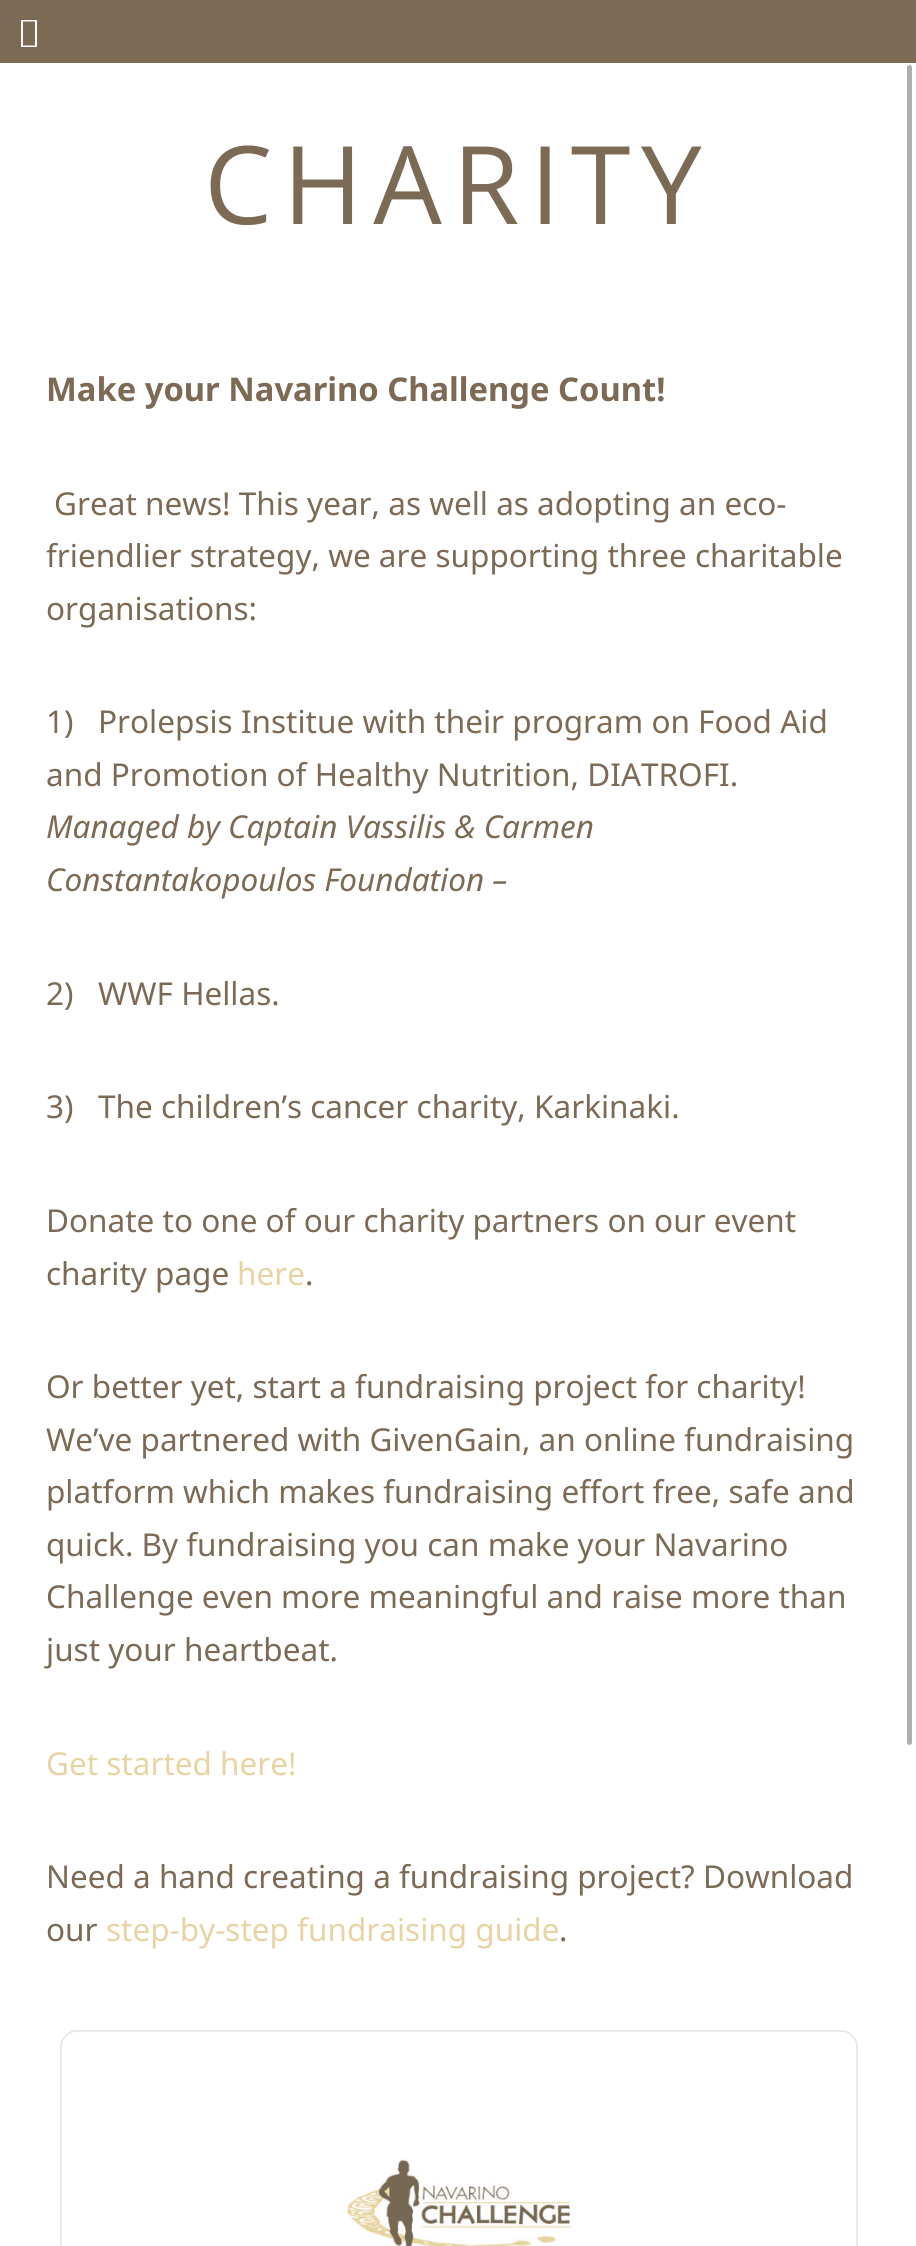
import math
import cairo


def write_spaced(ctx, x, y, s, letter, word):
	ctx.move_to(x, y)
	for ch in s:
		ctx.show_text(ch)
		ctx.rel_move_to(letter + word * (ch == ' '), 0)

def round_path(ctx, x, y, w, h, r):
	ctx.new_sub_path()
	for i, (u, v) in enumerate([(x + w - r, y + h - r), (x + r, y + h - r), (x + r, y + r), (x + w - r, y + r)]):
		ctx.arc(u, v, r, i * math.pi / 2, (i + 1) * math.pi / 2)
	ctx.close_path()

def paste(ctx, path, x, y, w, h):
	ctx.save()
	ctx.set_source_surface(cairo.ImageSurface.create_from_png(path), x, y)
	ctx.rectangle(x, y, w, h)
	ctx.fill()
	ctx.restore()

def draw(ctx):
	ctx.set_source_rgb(1, 1, 1)
	ctx.paint()
	ctx.set_source_rgb(0.49, 0.416, 0.329)
	ctx.rectangle(0, 0, 916, 63)
	ctx.fill()
	ctx.set_source_rgb(1, 1, 1)
	ctx.new_path()
	ctx.move_to(21, 47)
	ctx.line_to(21, 20)
	ctx.line_to(37, 20)
	ctx.line_to(37, 47)
	ctx.close_path()
	ctx.move_to(23, 45.5)
	ctx.line_to(35, 45.5)
	ctx.line_to(35, 21.5)
	ctx.line_to(23, 21.5)
	ctx.close_path()
	ctx.fill()
	ctx.select_font_face('Open Sans')
	ctx.set_font_size(108.5)
	ctx.set_source_rgb(0.49, 0.416, 0.333)
	write_spaced(ctx, 204, 224, 'CHARITY', 10.5, 0)
	ctx.select_font_face('Noto Sans', cairo.FONT_SLANT_NORMAL, cairo.FONT_WEIGHT_BOLD)
	ctx.set_font_size(32.7)
	ctx.move_to(46, 401)
	ctx.show_text('Make your Navarino Challenge Count!')
	ctx.select_font_face('Noto Sans')
	ctx.set_font_size(31.5)
	for x, y, s in [
		(54, 515, 'Great news! This year, as well as adopting an eco-'),
		(46, 567, 'friendlier strategy, we are supporting three charitable'),
		(46, 620, 'organisations:'),
		(46, 733, '1)'),
		(98, 733, 'Prolepsis Institue with their program on Food Aid'),
		(46, 786, 'and Promotion of Healthy Nutrition, DIATROFI.'),
	]:
		ctx.move_to(x, y)
		ctx.show_text(s)
	ctx.select_font_face('Noto Sans', cairo.FONT_SLANT_ITALIC)
	ctx.move_to(46, 838)
	ctx.show_text('Managed by Captain Vassilis & Carmen')
	ctx.move_to(46, 891)
	ctx.show_text('Constantakopoulos Foundation –')
	ctx.select_font_face('Noto Sans')
	for x, y, s in [
		(46, 1005, '2)'),
		(98, 1005, 'WWF Hellas.'),
		(46, 1118, '3)'),
		(98, 1118, 'The children’s cancer charity, Karkinaki.'),
		(46, 1232, 'Donate to one of our charity partners on our event'),
		(46, 1285, 'charity page'),
	]:
		ctx.move_to(x, y)
		ctx.show_text(s)
	ctx.set_source_rgb(0.91, 0.831, 0.639)
	ctx.move_to(237, 1285)
	ctx.show_text('here')
	ctx.set_source_rgb(0.49, 0.416, 0.333)
	for x, y, s in [
		(305, 1285, '.'),
		(46, 1398, 'Or better yet, start a fundraising project for charity!'),
		(46, 1451, 'We’ve partnered with GivenGain, an online fundraising'),
		(46, 1503, 'platform which makes fundraising effort free, safe and'),
		(46, 1556, 'quick. By fundraising you can make your Navarino'),
		(46, 1608, 'Challenge even more meaningful and raise more than'),
		(46, 1661, 'just your heartbeat.'),
	]:
		ctx.move_to(x, y)
		ctx.show_text(s)
	ctx.set_source_rgb(0.91, 0.831, 0.639)
	ctx.move_to(46, 1775)
	ctx.show_text('Get started here!')
	ctx.set_source_rgb(0.49, 0.416, 0.333)
	ctx.move_to(46, 1888)
	ctx.show_text('Need a hand creating a fundraising project? Download')
	ctx.move_to(46, 1941)
	ctx.show_text('our')
	ctx.set_source_rgb(0.91, 0.831, 0.639)
	ctx.move_to(106, 1941)
	ctx.show_text('step-by-step fundraising guide')
	ctx.set_source_rgb(0.49, 0.416, 0.333)
	ctx.move_to(559, 1941)
	ctx.show_text('.')
	paste(ctx, 'media/1.png', 60, 2030, 798, 216)
	ctx.set_source_rgb(0.682, 0.682, 0.682)
	round_path(ctx, 906, 64, 7, 1682, 3.5)
	ctx.fill_preserve()
	ctx.set_source_rgb(1, 1, 1)
	ctx.stroke()


surface = cairo.ImageSurface(cairo.FORMAT_RGB24, 916, 2246)
ctx = cairo.Context(surface)
options = cairo.FontOptions()
options.set_hint_metrics(cairo.HINT_METRICS_OFF)
options.set_hint_style(cairo.HINT_STYLE_NONE)
ctx.set_font_options(options)
ctx.set_miter_limit(4)
draw(ctx)
surface.write_to_png('image.png')
